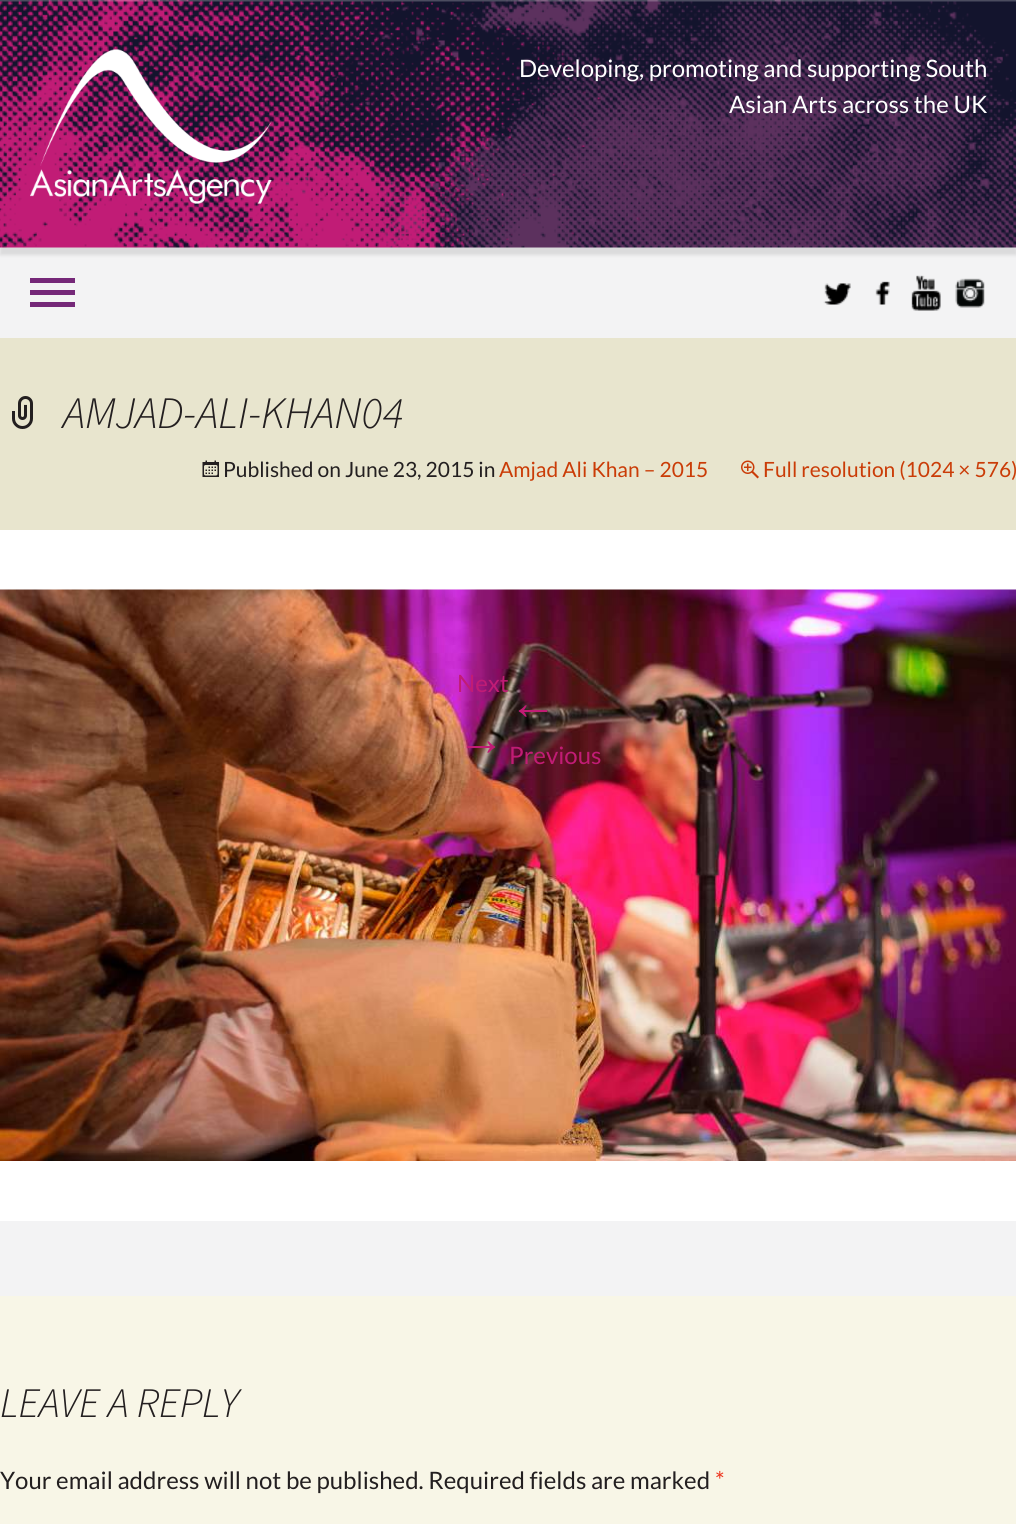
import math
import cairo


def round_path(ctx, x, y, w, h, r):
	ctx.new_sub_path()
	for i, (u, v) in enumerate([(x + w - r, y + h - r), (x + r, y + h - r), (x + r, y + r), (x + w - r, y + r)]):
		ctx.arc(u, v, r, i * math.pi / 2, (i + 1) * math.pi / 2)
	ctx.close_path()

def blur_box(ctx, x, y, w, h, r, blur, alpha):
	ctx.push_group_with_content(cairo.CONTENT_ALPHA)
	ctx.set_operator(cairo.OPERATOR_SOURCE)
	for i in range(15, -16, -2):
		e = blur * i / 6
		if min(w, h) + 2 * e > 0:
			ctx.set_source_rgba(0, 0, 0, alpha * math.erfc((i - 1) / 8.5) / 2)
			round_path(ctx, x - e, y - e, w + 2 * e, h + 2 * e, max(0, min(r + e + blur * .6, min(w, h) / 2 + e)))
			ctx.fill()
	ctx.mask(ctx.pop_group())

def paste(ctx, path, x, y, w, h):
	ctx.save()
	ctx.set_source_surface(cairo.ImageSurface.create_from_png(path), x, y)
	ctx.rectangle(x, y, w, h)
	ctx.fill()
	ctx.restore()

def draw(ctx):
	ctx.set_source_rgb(0.953, 0.953, 0.957)
	ctx.paint()
	ctx.set_source_rgb(0, 0, 0)
	blur_box(ctx, 0, 8, 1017, 247, 0, 1.5, 0.1)
	paste(ctx, 'media/1.png', 0, 0, 1016, 248)
	paste(ctx, 'media/2.png', 30, 49, 242, 155)
	ctx.select_font_face('Lato')
	ctx.set_font_size(24)
	ctx.set_source_rgb(1, 1, 1)
	ctx.move_to(519, 77)
	ctx.show_text('Developing, promoting and supporting South')
	ctx.move_to(729, 113)
	ctx.show_text('Asian Arts across the UK')
	ctx.set_source_rgb(0.459, 0.157, 0.471)
	ctx.rectangle(30, 290, 45, 5)
	ctx.rectangle(30, 278, 45, 5)
	ctx.rectangle(30, 302, 45, 5)
	ctx.fill()
	paste(ctx, 'media/3.png', 823, 283, 28, 22)
	paste(ctx, 'media/4.png', 875, 281, 15, 24)
	paste(ctx, 'media/5.png', 911, 275, 30, 36)
	paste(ctx, 'media/6.png', 955, 278, 30, 30)
	ctx.set_source_rgb(0.91, 0.898, 0.808)
	ctx.rectangle(0, 338, 1016, 192)
	ctx.fill()
	paste(ctx, 'media/7.png', 12, 396, 21, 33)
	ctx.select_font_face('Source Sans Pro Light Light', cairo.FONT_SLANT_ITALIC)
	ctx.set_font_size(45)
	ctx.set_source_rgb(0.137, 0.122, 0.125)
	ctx.move_to(63, 428)
	ctx.show_text('AMJAD-ALI-KHAN04')
	paste(ctx, 'media/8.png', 202, 460, 17, 17)
	ctx.select_font_face('Lato')
	ctx.set_font_size(21)
	ctx.move_to(223, 477)
	ctx.show_text('Published on June 23, 2015 in')
	ctx.set_source_rgb(0.792, 0.235, 0.031)
	ctx.move_to(499, 477)
	ctx.show_text('Amjad Ali Khan – 2015')
	paste(ctx, 'media/9.png', 741, 460, 18, 19)
	ctx.move_to(763, 477)
	ctx.show_text('Full resolution (1024 × 576)')
	ctx.set_source_rgb(1, 1, 1)
	ctx.rectangle(0, 530, 1016, 691)
	ctx.fill()
	paste(ctx, 'media/10.png', 0, 589, 1016, 572)
	ctx.set_font_size(24)
	ctx.set_source_rgb(0.757, 0.11, 0.459)
	ctx.move_to(457, 692)
	ctx.show_text('Next')
	ctx.select_font_face('Liberation Sans')
	ctx.set_font_size(48)
	ctx.move_to(457, 755)
	ctx.show_text('→')
	ctx.move_to(509, 719)
	ctx.show_text('←')
	ctx.select_font_face('Lato')
	ctx.set_font_size(24)
	ctx.move_to(509, 764)
	ctx.show_text('Previous')
	ctx.set_source_rgb(0.969, 0.961, 0.906)
	ctx.rectangle(0, 1296, 1016, 228)
	ctx.fill()
	ctx.select_font_face('Source Sans Pro Light Light', cairo.FONT_SLANT_ITALIC)
	ctx.set_font_size(42)
	ctx.set_source_rgb(0.137, 0.122, 0.125)
	ctx.move_to(0, 1417)
	ctx.show_text('LEAVE A REPLY')
	ctx.select_font_face('Lato')
	ctx.set_font_size(24)
	ctx.move_to(0, 1489)
	ctx.show_text('Your email address will not be published. Required fields are marked')
	ctx.set_source_rgb(0.929, 0.2, 0.11)
	ctx.move_to(715, 1489)
	ctx.show_text('*')


surface = cairo.ImageSurface(cairo.FORMAT_RGB24, 1016, 1524)
ctx = cairo.Context(surface)
options = cairo.FontOptions()
options.set_hint_metrics(cairo.HINT_METRICS_OFF)
options.set_hint_style(cairo.HINT_STYLE_NONE)
ctx.set_font_options(options)
ctx.set_miter_limit(4)
draw(ctx)
surface.write_to_png('image.png')
